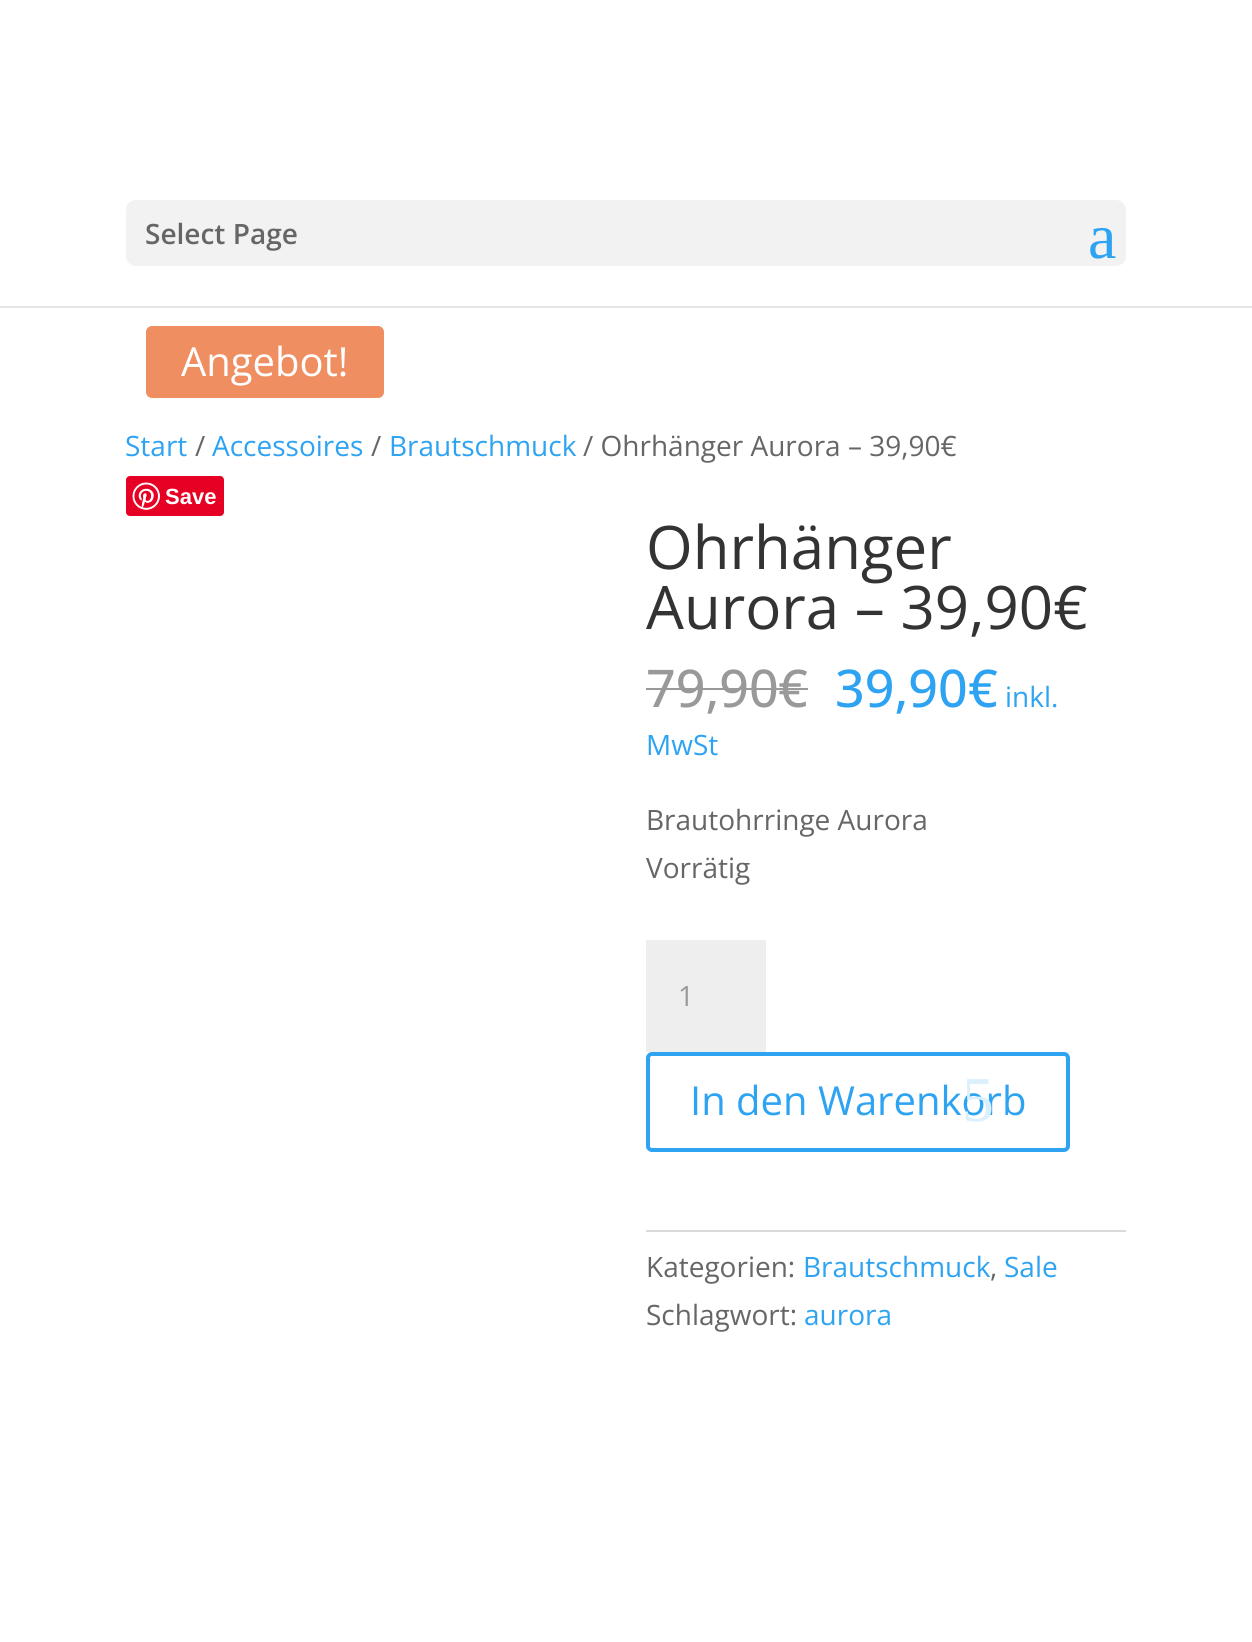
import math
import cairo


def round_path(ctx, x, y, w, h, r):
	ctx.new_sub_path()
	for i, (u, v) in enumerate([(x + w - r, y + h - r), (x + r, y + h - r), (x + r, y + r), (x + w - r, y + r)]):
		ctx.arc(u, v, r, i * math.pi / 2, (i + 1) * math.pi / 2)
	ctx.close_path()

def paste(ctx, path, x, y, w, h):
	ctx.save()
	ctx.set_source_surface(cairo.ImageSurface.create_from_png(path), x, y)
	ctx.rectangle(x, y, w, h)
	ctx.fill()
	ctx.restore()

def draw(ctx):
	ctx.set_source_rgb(1, 1, 1)
	ctx.paint()
	ctx.set_source_rgb(0.902, 0.902, 0.902)
	ctx.rectangle(0, 306, 1252, 2)
	ctx.fill()
	ctx.set_source_rgb(0.949, 0.949, 0.949)
	round_path(ctx, 126, 200, 1000, 66, 10)
	ctx.fill()
	ctx.select_font_face('Open Sans SemiBold')
	ctx.set_font_size(28)
	ctx.set_source_rgb(0.4, 0.4, 0.4)
	ctx.move_to(145, 244)
	ctx.show_text('Select Page')
	ctx.select_font_face('Liberation Serif')
	ctx.set_font_size(64)
	ctx.set_source_rgb(0.18, 0.639, 0.949)
	ctx.move_to(1088, 258)
	ctx.show_text('a')
	ctx.set_source_rgb(0.937, 0.561, 0.38)
	round_path(ctx, 146, 326, 238, 72, 6)
	ctx.fill()
	ctx.select_font_face('Open Sans')
	ctx.set_font_size(40)
	ctx.set_source_rgb(1, 1, 1)
	ctx.move_to(181, 376)
	ctx.show_text('Angebot!')
	ctx.set_source_rgb(0.902, 0, 0.137)
	round_path(ctx, 126, 476, 98, 40, 4)
	ctx.fill()
	paste(ctx, 'media/1.png', 132, 482, 28, 28)
	ctx.select_font_face('Liberation Sans', cairo.FONT_SLANT_NORMAL, cairo.FONT_WEIGHT_BOLD)
	ctx.set_font_size(22)
	ctx.set_source_rgb(1, 1, 1)
	ctx.move_to(165, 504)
	ctx.show_text('Save')
	ctx.select_font_face('Open Sans')
	ctx.set_font_size(60)
	ctx.set_source_rgb(0.2, 0.2, 0.2)
	ctx.move_to(646, 569)
	ctx.show_text('Ohrhänger')
	ctx.move_to(646, 629)
	ctx.show_text('Aurora – 39,90€')
	ctx.select_font_face('Open Sans Medium')
	ctx.set_font_size(52)
	ctx.set_source_rgb(0.6, 0.6, 0.6)
	ctx.move_to(646, 707)
	ctx.show_text('79,90')
	ctx.move_to(778, 707)
	ctx.show_text('€')
	ctx.rectangle(646, 688, 132, 2)
	ctx.fill()
	ctx.rectangle(778, 688, 30, 2)
	ctx.fill()
	ctx.set_source_rgb(0.18, 0.639, 0.949)
	ctx.move_to(835, 707)
	ctx.show_text('39,90')
	ctx.move_to(968, 707)
	ctx.show_text('€')
	ctx.select_font_face('Open Sans')
	ctx.set_font_size(28)
	ctx.move_to(1005, 707)
	ctx.show_text('inkl.')
	ctx.move_to(646, 755)
	ctx.show_text('MwSt')
	ctx.set_source_rgb(0.4, 0.4, 0.4)
	ctx.move_to(646, 830)
	ctx.show_text('Brautohrringe Aurora')
	ctx.move_to(646, 878)
	ctx.show_text('Vorrätig')
	ctx.set_source_rgb(0.933, 0.933, 0.933)
	ctx.rectangle(646, 940, 120, 112)
	ctx.fill()
	ctx.set_source_rgb(0.6, 0.6, 0.6)
	ctx.move_to(678, 1006)
	ctx.show_text('1')
	round_path(ctx, 648, 1054, 420, 96, 4)
	ctx.set_source_rgb(0.18, 0.639, 0.949)
	ctx.set_line_width(4)
	ctx.stroke()
	ctx.set_font_size(40)
	ctx.move_to(690, 1115)
	ctx.show_text('In den Warenkorb')
	ctx.select_font_face('Liberation Serif')
	ctx.set_font_size(64)
	ctx.set_source_rgb(0.859, 0.937, 0.992)
	ctx.move_to(962, 1121)
	ctx.show_text('5')
	ctx.set_source_rgb(0.855, 0.855, 0.855)
	ctx.rectangle(646, 1230, 480, 2)
	ctx.fill()
	ctx.select_font_face('Open Sans')
	ctx.set_font_size(28)
	ctx.set_source_rgb(0.4, 0.4, 0.4)
	ctx.move_to(646, 1277)
	ctx.show_text('Kategorien:')
	ctx.set_source_rgb(0.18, 0.639, 0.949)
	ctx.move_to(803, 1277)
	ctx.show_text('Brautschmuck')
	ctx.set_source_rgb(0.4, 0.4, 0.4)
	ctx.move_to(990, 1277)
	ctx.show_text(',')
	ctx.set_source_rgb(0.18, 0.639, 0.949)
	ctx.move_to(1004, 1277)
	ctx.show_text('Sale')
	ctx.set_source_rgb(0.4, 0.4, 0.4)
	ctx.move_to(646, 1325)
	ctx.show_text('Schlagwort:')
	ctx.set_source_rgb(0.18, 0.639, 0.949)
	ctx.move_to(804, 1325)
	ctx.show_text('aurora')
	ctx.move_to(125, 456)
	ctx.show_text('Start')
	ctx.set_source_rgb(0.4, 0.4, 0.4)
	ctx.move_to(195, 456)
	ctx.show_text('/')
	ctx.set_source_rgb(0.18, 0.639, 0.949)
	ctx.move_to(212, 456)
	ctx.show_text('Accessoires')
	ctx.set_source_rgb(0.4, 0.4, 0.4)
	ctx.move_to(371, 456)
	ctx.show_text('/')
	ctx.set_source_rgb(0.18, 0.639, 0.949)
	ctx.move_to(389, 456)
	ctx.show_text('Brautschmuck')
	ctx.set_source_rgb(0.4, 0.4, 0.4)
	ctx.move_to(583, 456)
	ctx.show_text('/ Ohrhänger Aurora – 39,90€')


surface = cairo.ImageSurface(cairo.FORMAT_RGB24, 1252, 1642)
ctx = cairo.Context(surface)
options = cairo.FontOptions()
options.set_hint_metrics(cairo.HINT_METRICS_OFF)
options.set_hint_style(cairo.HINT_STYLE_NONE)
ctx.set_font_options(options)
ctx.set_miter_limit(4)
draw(ctx)
surface.write_to_png('image.png')
